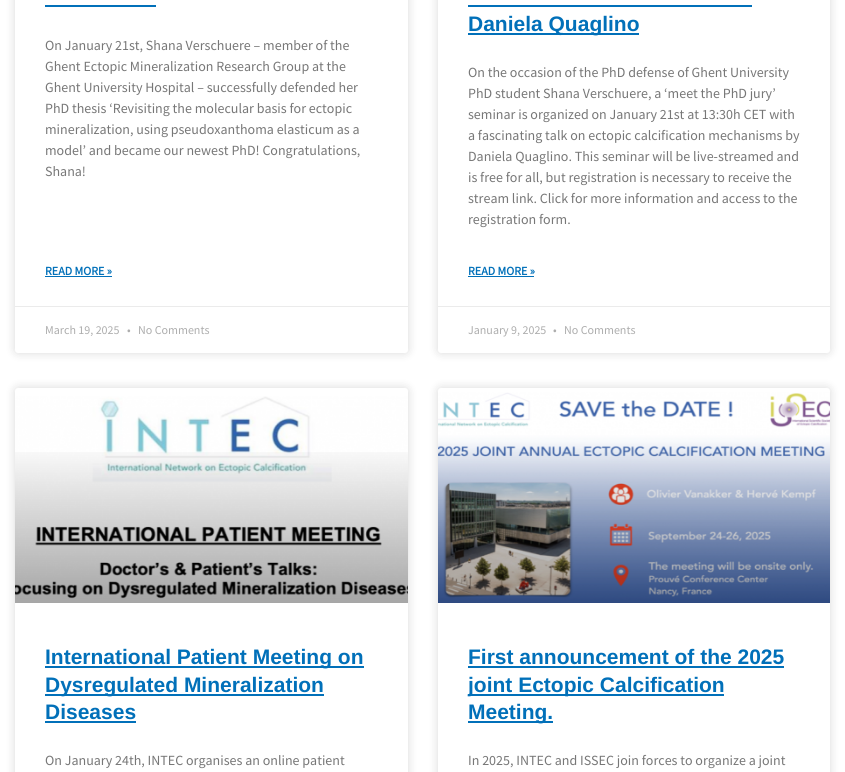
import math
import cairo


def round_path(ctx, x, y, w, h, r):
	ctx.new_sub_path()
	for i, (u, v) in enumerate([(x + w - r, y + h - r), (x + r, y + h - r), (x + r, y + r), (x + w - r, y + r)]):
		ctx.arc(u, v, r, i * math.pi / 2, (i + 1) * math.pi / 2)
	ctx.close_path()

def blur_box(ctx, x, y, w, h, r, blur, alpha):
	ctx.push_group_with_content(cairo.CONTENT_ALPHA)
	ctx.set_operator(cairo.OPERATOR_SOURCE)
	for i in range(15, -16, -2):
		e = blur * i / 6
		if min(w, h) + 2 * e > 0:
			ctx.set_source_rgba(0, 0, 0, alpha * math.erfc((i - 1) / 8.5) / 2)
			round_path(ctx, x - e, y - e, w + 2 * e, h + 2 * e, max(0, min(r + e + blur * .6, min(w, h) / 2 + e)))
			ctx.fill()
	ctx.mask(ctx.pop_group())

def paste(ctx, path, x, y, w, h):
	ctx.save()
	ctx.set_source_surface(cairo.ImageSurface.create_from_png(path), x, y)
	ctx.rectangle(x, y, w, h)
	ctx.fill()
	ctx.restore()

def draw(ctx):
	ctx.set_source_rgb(1, 1, 1)
	ctx.paint()
	ctx.set_source_rgb(0, 0, 0)
	blur_box(ctx, 15, -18, 393, 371, 3, 5, 0.15)
	ctx.set_source_rgb(1, 1, 1)
	round_path(ctx, 15, -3, 393, 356, 3)
	ctx.fill()
	ctx.set_source_rgb(0.004, 0.439, 0.725)
	ctx.rectangle(45, 5, 111, 2)
	ctx.fill()
	ctx.select_font_face('Source Sans Pro')
	ctx.set_font_size(14)
	ctx.set_source_rgb(0.467, 0.467, 0.467)
	for x, y, s in [
		(45, 50, 'On January 21st, Shana Verschuere – member of the'),
		(45, 71, 'Ghent Ectopic Mineralization Research Group at the'),
		(45, 92, 'Ghent University Hospital – successfully defended her'),
		(45, 113, 'PhD thesis ‘Revisiting the molecular basis for ectopic'),
		(45, 134, 'mineralization, using pseudoxanthoma elasticum as a'),
		(45, 155, 'model’ and became our newest PhD! Congratulations,'),
		(45, 176, 'Shana!'),
	]:
		ctx.move_to(x, y)
		ctx.show_text(s)
	ctx.select_font_face('Source Sans Pro', cairo.FONT_SLANT_NORMAL, cairo.FONT_WEIGHT_BOLD)
	ctx.set_font_size(12)
	ctx.set_source_rgb(0.004, 0.439, 0.725)
	ctx.move_to(45, 275)
	ctx.show_text('READ MORE »')
	ctx.rectangle(45, 276, 67, 1)
	ctx.fill()
	ctx.set_source_rgb(0.918, 0.918, 0.918)
	ctx.rectangle(15, 306, 393, 1)
	ctx.fill()
	ctx.select_font_face('Source Sans Pro')
	ctx.set_source_rgb(0.678, 0.678, 0.678)
	for x, y, s in [
		(45, 334, 'March 19, 2025'),
		(127, 334, '•'),
		(138, 334, 'No Comments'),
	]:
		ctx.move_to(x, y)
		ctx.show_text(s)
	ctx.set_source_rgb(0, 0, 0)
	blur_box(ctx, 438, -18, 392, 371, 3, 5, 0.15)
	ctx.set_source_rgb(1, 1, 1)
	round_path(ctx, 438, -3, 392, 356, 3)
	ctx.fill()
	ctx.set_source_rgb(0.004, 0.439, 0.725)
	ctx.rectangle(468, 33, 171, 2)
	ctx.fill()
	ctx.select_font_face('Liberation Sans', cairo.FONT_SLANT_NORMAL, cairo.FONT_WEIGHT_BOLD)
	ctx.set_font_size(21)
	ctx.move_to(468, 31)
	ctx.show_text('Daniela Quaglino')
	ctx.rectangle(468, 5, 284, 2)
	ctx.fill()
	ctx.select_font_face('Source Sans Pro')
	ctx.set_font_size(14)
	ctx.set_source_rgb(0.467, 0.467, 0.467)
	for x, y, s in [
		(468, 77, 'On the occasion of the PhD defense of Ghent University'),
		(468, 98, 'PhD student Shana Verschuere, a ‘meet the PhD jury’'),
		(468, 119, 'seminar is organized on January 21st at 13:30h CET with'),
		(468, 140, 'a fascinating talk on ectopic calcification mechanisms by'),
		(468, 161, 'Daniela Quaglino. This seminar will be live-streamed and'),
		(468, 182, 'is free for all, but registration is necessary to receive the'),
		(468, 203, 'stream link. Click for more information and access to the'),
		(468, 224, 'registration form.'),
	]:
		ctx.move_to(x, y)
		ctx.show_text(s)
	ctx.select_font_face('Source Sans Pro', cairo.FONT_SLANT_NORMAL, cairo.FONT_WEIGHT_BOLD)
	ctx.set_font_size(12)
	ctx.set_source_rgb(0.004, 0.439, 0.725)
	ctx.move_to(468, 275)
	ctx.show_text('READ MORE »')
	ctx.rectangle(468, 276, 66, 1)
	ctx.fill()
	ctx.set_source_rgb(0.918, 0.918, 0.918)
	ctx.rectangle(438, 306, 392, 1)
	ctx.fill()
	ctx.select_font_face('Source Sans Pro')
	ctx.set_source_rgb(0.678, 0.678, 0.678)
	for x, y, s in [
		(468, 334, 'January 9, 2025'),
		(553, 334, '•'),
		(564, 334, 'No Comments'),
	]:
		ctx.move_to(x, y)
		ctx.show_text(s)
	ctx.set_source_rgb(0, 0, 0)
	blur_box(ctx, 15, 388, 393, 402, 3, 5, 0.15)
	ctx.set_source_rgb(1, 1, 1)
	round_path(ctx, 15, 388, 393, 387, 3)
	ctx.fill()
	paste(ctx, 'media/1.png', 15, 396, 393, 203)
	gradient = cairo.LinearGradient(212, 603, 212, 388)
	gradient.add_color_stop_rgba(0, 0, 0, 0, 0.35)
	gradient.add_color_stop_rgba(0.75, 0, 0, 0, 0)
	ctx.set_source(gradient)
	ctx.rectangle(15, 452, 393, 151)
	ctx.fill()
	ctx.set_source_rgb(0.004, 0.439, 0.725)
	ctx.rectangle(45, 666, 319, 2)
	ctx.fill()
	ctx.select_font_face('Liberation Sans', cairo.FONT_SLANT_NORMAL, cairo.FONT_WEIGHT_BOLD)
	ctx.set_font_size(21)
	ctx.move_to(45, 664)
	ctx.show_text('International Patient Meeting on')
	ctx.rectangle(45, 694, 279, 2)
	ctx.fill()
	ctx.move_to(45, 692)
	ctx.show_text('Dysregulated Mineralization')
	ctx.move_to(45, 719)
	ctx.show_text('Diseases')
	ctx.rectangle(45, 721, 91, 2)
	ctx.fill()
	ctx.select_font_face('Source Sans Pro')
	ctx.set_font_size(14)
	ctx.set_source_rgb(0.467, 0.467, 0.467)
	ctx.move_to(45, 765)
	ctx.show_text('On January 24th, INTEC organises an online patient')
	ctx.set_source_rgb(0, 0, 0)
	blur_box(ctx, 438, 388, 392, 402, 3, 5, 0.15)
	ctx.set_source_rgb(1, 1, 1)
	round_path(ctx, 438, 388, 392, 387, 3)
	ctx.fill()
	paste(ctx, 'media/2.png', 438, 392, 392, 211)
	ctx.select_font_face('Liberation Sans', cairo.FONT_SLANT_NORMAL, cairo.FONT_WEIGHT_BOLD)
	ctx.set_font_size(21)
	ctx.set_source_rgb(0.004, 0.439, 0.725)
	ctx.move_to(468, 664)
	ctx.show_text('First announcement of the 2025')
	ctx.rectangle(468, 666, 316, 2)
	ctx.fill()
	ctx.rectangle(468, 694, 256, 2)
	ctx.fill()
	ctx.move_to(468, 692)
	ctx.show_text('joint Ectopic Calcification')
	ctx.rectangle(468, 721, 85, 2)
	ctx.fill()
	ctx.move_to(468, 719)
	ctx.show_text('Meeting.')
	ctx.select_font_face('Source Sans Pro')
	ctx.set_font_size(14)
	ctx.set_source_rgb(0.467, 0.467, 0.467)
	ctx.move_to(468, 765)
	ctx.show_text('In 2025, INTEC and ISSEC join forces to organize a joint')


surface = cairo.ImageSurface(cairo.FORMAT_RGB24, 845, 772)
ctx = cairo.Context(surface)
options = cairo.FontOptions()
options.set_hint_metrics(cairo.HINT_METRICS_OFF)
options.set_hint_style(cairo.HINT_STYLE_NONE)
ctx.set_font_options(options)
ctx.set_miter_limit(4)
draw(ctx)
surface.write_to_png('image.png')
